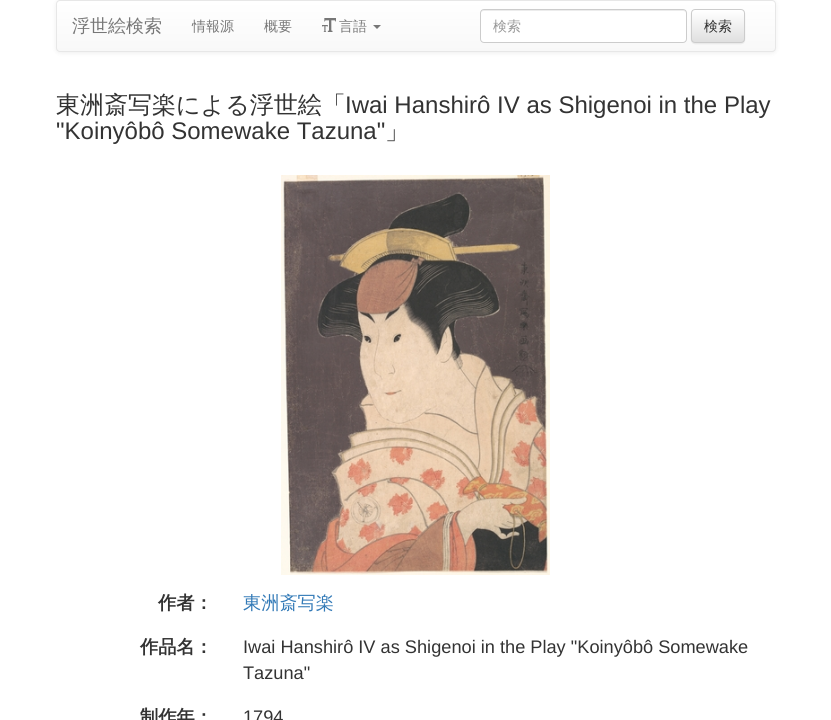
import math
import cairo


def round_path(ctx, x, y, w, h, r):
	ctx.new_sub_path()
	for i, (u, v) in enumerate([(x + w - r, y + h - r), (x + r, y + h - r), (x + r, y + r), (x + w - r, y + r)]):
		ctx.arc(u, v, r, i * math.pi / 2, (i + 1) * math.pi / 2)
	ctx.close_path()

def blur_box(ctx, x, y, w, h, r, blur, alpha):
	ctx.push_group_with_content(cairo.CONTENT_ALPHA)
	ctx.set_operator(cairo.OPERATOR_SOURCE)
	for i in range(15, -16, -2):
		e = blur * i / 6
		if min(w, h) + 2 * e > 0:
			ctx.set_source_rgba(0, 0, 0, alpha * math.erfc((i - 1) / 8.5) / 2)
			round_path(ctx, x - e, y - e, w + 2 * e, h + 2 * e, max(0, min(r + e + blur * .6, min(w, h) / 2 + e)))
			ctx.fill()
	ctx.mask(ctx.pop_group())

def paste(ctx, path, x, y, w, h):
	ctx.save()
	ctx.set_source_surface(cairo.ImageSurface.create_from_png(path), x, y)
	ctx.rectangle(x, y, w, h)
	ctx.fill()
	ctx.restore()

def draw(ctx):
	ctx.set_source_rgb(1, 1, 1)
	ctx.paint()
	ctx.set_source_rgb(0, 0, 0)
	blur_box(ctx, 56, 1, 720, 52, 4, 2.5, 0.07)
	ctx.save()
	round_path(ctx, 56, 0, 720, 52, 4)
	ctx.clip()
	gradient = cairo.LinearGradient(416, 1, 416, 51)
	gradient.add_color_stop_rgba(0, 1, 1, 1, 1)
	gradient.add_color_stop_rgba(1, 0.973, 0.973, 0.973, 1)
	ctx.set_source(gradient)
	ctx.rectangle(56, 1, 720, 50)
	ctx.fill()
	ctx.restore()
	round_path(ctx, 56.5, 0.5, 719, 51, 3.5)
	ctx.set_source_rgb(0.906, 0.906, 0.906)
	ctx.set_line_width(1)
	ctx.stroke()
	ctx.select_font_face('WenQuanYi Zen Hei Medium')
	ctx.set_font_size(18)
	ctx.set_source_rgb(0.467, 0.467, 0.467)
	ctx.move_to(72, 32)
	ctx.show_text('浮世絵検索')
	ctx.set_font_size(14)
	ctx.move_to(192, 31)
	ctx.show_text('情報源')
	ctx.move_to(264, 31)
	ctx.show_text('概要')
	paste(ctx, 'media/1.png', 322, 18, 14, 14)
	ctx.move_to(339, 31)
	ctx.show_text('言語')
	ctx.new_path()
	ctx.move_to(373, 25)
	ctx.line_to(381, 25)
	ctx.line_to(377, 29)
	ctx.close_path()
	ctx.fill()
	ctx.set_source_rgb(1, 1, 1)
	round_path(ctx, 480, 9, 207, 34, 4)
	ctx.fill()
	ctx.set_source_rgb(0.925, 0.925, 0.925)
	ctx.new_path()
	ctx.move_to(484, 11)
	ctx.line_to(683, 11)
	ctx.curve_to(685, 11, 686, 12, 686, 14)
	ctx.curve_to(686, 12, 685, 10, 683, 10)
	ctx.line_to(484, 10)
	ctx.curve_to(482, 10, 481, 12, 481, 14)
	ctx.curve_to(481, 12, 482, 11, 484, 11)
	ctx.close_path()
	ctx.fill()
	round_path(ctx, 480.5, 9.5, 206, 33, 3.5)
	ctx.set_source_rgb(0.8, 0.8, 0.8)
	ctx.stroke()
	ctx.set_source_rgb(0.6, 0.6, 0.6)
	ctx.move_to(493, 31)
	ctx.show_text('検索')
	ctx.set_source_rgb(0, 0, 0)
	blur_box(ctx, 691, 10, 54, 34, 4, 0.5, 0.07)
	ctx.save()
	round_path(ctx, 691, 9, 54, 34, 4)
	ctx.clip()
	gradient = cairo.LinearGradient(718, 10, 718, 42)
	gradient.add_color_stop_rgba(0, 1, 1, 1, 1)
	gradient.add_color_stop_rgba(1, 0.878, 0.878, 0.878, 1)
	ctx.set_source(gradient)
	ctx.rectangle(691, 10, 54, 32)
	ctx.fill()
	ctx.restore()
	round_path(ctx, 691.5, 9.5, 53, 33, 3.5)
	ctx.set_source_rgb(0.8, 0.8, 0.8)
	ctx.stroke()
	ctx.set_source_rgb(0.2, 0.2, 0.2)
	ctx.move_to(704, 31)
	ctx.show_text('検索')
	ctx.set_font_size(24)
	ctx.move_to(56, 113)
	ctx.show_text('東洲斎写楽による浮世絵「')
	ctx.select_font_face('Liberation Sans')
	ctx.move_to(345, 113)
	ctx.show_text('Iwai Hanshirô IV as Shigenoi in the Play')
	ctx.move_to(56, 139)
	ctx.show_text('"Koinyôbô Somewake Tazuna"')
	ctx.select_font_face('WenQuanYi Zen Hei Medium')
	ctx.move_to(385, 139)
	ctx.show_text('」')
	paste(ctx, 'media/2.png', 281, 175, 269, 400)
	ctx.select_font_face('WenQuanYi Zen Hei', cairo.FONT_SLANT_NORMAL, cairo.FONT_WEIGHT_BOLD)
	ctx.set_font_size(18.2)
	ctx.move_to(158, 609)
	ctx.show_text('作者：')
	ctx.select_font_face('WenQuanYi Zen Hei Medium')
	ctx.set_source_rgb(0.2, 0.478, 0.718)
	ctx.move_to(243, 609)
	ctx.show_text('東洲斎写楽')
	ctx.select_font_face('WenQuanYi Zen Hei', cairo.FONT_SLANT_NORMAL, cairo.FONT_WEIGHT_BOLD)
	ctx.set_source_rgb(0.2, 0.2, 0.2)
	ctx.move_to(140, 653)
	ctx.show_text('作品名：')
	ctx.select_font_face('Liberation Sans')
	ctx.move_to(243, 653)
	ctx.show_text('Iwai Hanshirô IV as Shigenoi in the Play "Koinyôbô Somewake')
	ctx.move_to(243, 679)
	ctx.show_text('Tazuna"')
	ctx.select_font_face('WenQuanYi Zen Hei', cairo.FONT_SLANT_NORMAL, cairo.FONT_WEIGHT_BOLD)
	ctx.move_to(140, 723)
	ctx.show_text('制作年：')
	ctx.select_font_face('Liberation Sans')
	ctx.move_to(243, 723)
	ctx.show_text('1794')


surface = cairo.ImageSurface(cairo.FORMAT_RGB24, 831, 720)
ctx = cairo.Context(surface)
options = cairo.FontOptions()
options.set_hint_metrics(cairo.HINT_METRICS_OFF)
options.set_hint_style(cairo.HINT_STYLE_NONE)
ctx.set_font_options(options)
ctx.set_miter_limit(4)
draw(ctx)
surface.write_to_png('image.png')
